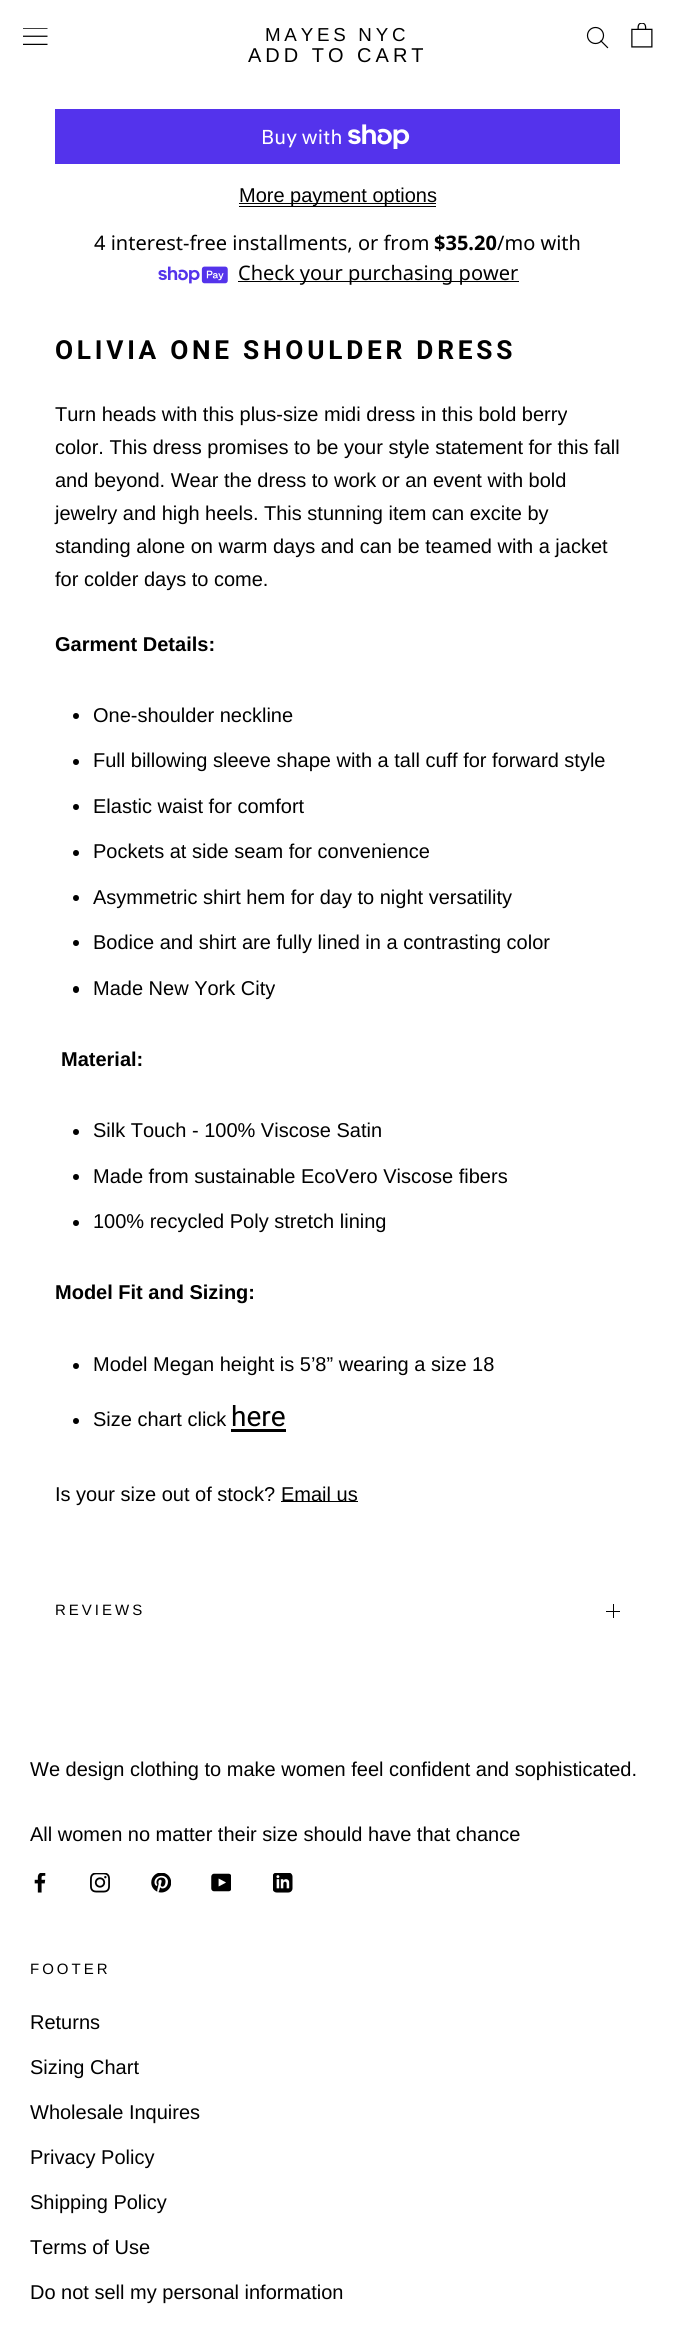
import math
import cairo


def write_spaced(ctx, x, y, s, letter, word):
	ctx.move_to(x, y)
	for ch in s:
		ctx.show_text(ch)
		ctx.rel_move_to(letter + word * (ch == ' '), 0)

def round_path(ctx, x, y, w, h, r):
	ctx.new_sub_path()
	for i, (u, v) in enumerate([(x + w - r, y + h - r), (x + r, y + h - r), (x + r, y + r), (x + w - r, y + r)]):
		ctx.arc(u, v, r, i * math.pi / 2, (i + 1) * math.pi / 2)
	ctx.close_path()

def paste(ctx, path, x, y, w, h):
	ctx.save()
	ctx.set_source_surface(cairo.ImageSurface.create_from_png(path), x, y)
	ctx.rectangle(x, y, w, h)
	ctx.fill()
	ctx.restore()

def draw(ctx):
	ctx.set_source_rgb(1, 1, 1)
	ctx.paint()
	paste(ctx, 'media/1.png', 23, 28, 25, 17)
	ctx.select_font_face('Liberation Sans')
	ctx.set_font_size(18.75)
	ctx.set_source_rgb(0, 0, 0)
	write_spaced(ctx, 265, 41, 'MAYES NYC', 3.75, 0)
	ctx.new_path()
	ctx.move_to(607.5, 47.5)
	ctx.line_to(601, 41)
	ctx.set_line_width(1.2)
	ctx.set_line_cap(cairo.LINE_CAP_SQUARE)
	ctx.stroke()
	ctx.arc(595.5, 35.5, 8, 0, 2 * math.pi)
	ctx.set_line_cap(cairo.LINE_CAP_BUTT)
	ctx.stroke()
	paste(ctx, 'media/2.png', 631, 23, 22, 25)
	ctx.set_font_size(20)
	write_spaced(ctx, 248, 62, 'ADD TO CART', 4, 0)
	ctx.set_source_rgb(0.329, 0.2, 0.922)
	ctx.rectangle(55, 109, 565, 55)
	ctx.fill()
	ctx.select_font_face('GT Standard')
	ctx.set_source_rgb(1, 1, 1)
	ctx.move_to(261, 144)
	ctx.show_text('Buy with')
	paste(ctx, 'media/3.png', 348, 124, 62, 25)
	ctx.set_source_rgb(0, 0, 0)
	ctx.rectangle(239, 203, 197, 1)
	ctx.fill()
	ctx.select_font_face('Liberation Sans')
	ctx.move_to(239, 202)
	ctx.show_text('More payment options')
	ctx.rectangle(239, 206, 197, 1)
	ctx.fill()
	ctx.select_font_face('Noto Sans')
	ctx.move_to(94, 250)
	ctx.show_text('4 interest-free installments, or from')
	ctx.select_font_face('Noto Sans', cairo.FONT_SLANT_NORMAL, cairo.FONT_WEIGHT_BOLD)
	ctx.move_to(434, 250)
	ctx.show_text('$35.20')
	ctx.select_font_face('Noto Sans')
	ctx.move_to(497, 250)
	ctx.show_text('/mo with')
	paste(ctx, 'media/4.png', 158, 266, 70, 18)
	ctx.rectangle(238, 281, 281, 1)
	ctx.fill()
	ctx.move_to(238, 280)
	ctx.show_text('Check your purchasing power')
	ctx.select_font_face('Roboto', cairo.FONT_SLANT_NORMAL, cairo.FONT_WEIGHT_BOLD)
	ctx.set_font_size(26.25)
	write_spaced(ctx, 55, 359, 'OLIVIA ONE SHOULDER DRESS', 3.75, 0)
	ctx.select_font_face('Liberation Sans')
	ctx.set_font_size(20)
	for x, y, s in [
		(55, 421, 'Turn heads with this plus-size midi dress in this bold berry'),
		(55, 454, 'color. This dress promises to be your style statement for this fall'),
		(55, 487, 'and beyond. Wear the dress to work or an event with bold'),
		(55, 520, 'jewelry and high heels. This stunning item can excite by'),
		(55, 553, 'standing alone on warm days and can be teamed with a jacket'),
		(55, 586, 'for colder days to come.'),
	]:
		ctx.move_to(x, y)
		ctx.show_text(s)
	ctx.select_font_face('Liberation Sans', cairo.FONT_SLANT_NORMAL, cairo.FONT_WEIGHT_BOLD)
	ctx.move_to(55, 651)
	ctx.show_text('Garment Details:')
	ctx.new_path()
	ctx.arc(76, 716, 3, 0, 2 * math.pi)
	ctx.fill()
	ctx.select_font_face('Liberation Sans')
	ctx.move_to(93, 722)
	ctx.show_text('One-shoulder neckline')
	ctx.new_path()
	ctx.arc(76, 762, 3, 0, 2 * math.pi)
	ctx.fill()
	ctx.move_to(93, 767)
	ctx.show_text('Full billowing sleeve shape with a tall cuff for forward style')
	ctx.new_path()
	ctx.arc(76, 807, 3, 0, 2 * math.pi)
	ctx.fill()
	ctx.move_to(93, 813)
	ctx.show_text('Elastic waist for comfort')
	ctx.new_path()
	ctx.arc(76, 853, 3, 0, 2 * math.pi)
	ctx.fill()
	ctx.move_to(93, 858)
	ctx.show_text('Pockets at side seam for convenience')
	ctx.new_path()
	ctx.arc(76, 898, 3, 0, 2 * math.pi)
	ctx.fill()
	ctx.move_to(93, 904)
	ctx.show_text('Asymmetric shirt hem for day to night versatility')
	ctx.new_path()
	ctx.arc(76, 943, 3, 0, 2 * math.pi)
	ctx.fill()
	ctx.move_to(93, 949)
	ctx.show_text('Bodice and shirt are fully lined in a contrasting color')
	round_path(ctx, 73, 986, 6, 7, 3)
	ctx.fill()
	ctx.move_to(93, 995)
	ctx.show_text('Made New York City')
	ctx.select_font_face('Liberation Sans', cairo.FONT_SLANT_NORMAL, cairo.FONT_WEIGHT_BOLD)
	ctx.move_to(61, 1066)
	ctx.show_text('Material:')
	ctx.new_path()
	ctx.arc(76, 1132, 3, 0, 2 * math.pi)
	ctx.fill()
	ctx.select_font_face('Liberation Sans')
	ctx.move_to(93, 1137)
	ctx.show_text('Silk Touch - 100% Viscose Satin')
	ctx.new_path()
	ctx.arc(76, 1177, 3, 0, 2 * math.pi)
	ctx.fill()
	ctx.move_to(93, 1183)
	ctx.show_text('Made from sustainable EcoVero Viscose fibers')
	ctx.new_path()
	ctx.arc(76, 1223, 3, 0, 2 * math.pi)
	ctx.fill()
	ctx.move_to(93, 1228)
	ctx.show_text('100% recycled Poly stretch lining')
	ctx.select_font_face('Liberation Sans', cairo.FONT_SLANT_NORMAL, cairo.FONT_WEIGHT_BOLD)
	ctx.move_to(55, 1299)
	ctx.show_text('Model Fit and Sizing:')
	ctx.new_path()
	ctx.arc(76, 1366, 3, 0, 2 * math.pi)
	ctx.fill()
	ctx.select_font_face('Liberation Sans')
	ctx.move_to(93, 1371)
	ctx.show_text('Model Megan height is 5’8” wearing a size 18')
	ctx.new_path()
	ctx.arc(76, 1421, 3, 0, 2 * math.pi)
	ctx.fill()
	ctx.move_to(93, 1426)
	ctx.show_text('Size chart click')
	ctx.select_font_face('Roboto')
	ctx.set_font_size(28)
	ctx.move_to(231, 1426)
	ctx.show_text('here')
	ctx.rectangle(231, 1429, 55, 3)
	ctx.fill()
	ctx.select_font_face('Liberation Sans')
	ctx.set_font_size(20)
	ctx.move_to(55, 1501)
	ctx.show_text('Is your size out of stock?')
	ctx.rectangle(281, 1501, 77, 1)
	ctx.fill()
	ctx.move_to(281, 1501)
	ctx.show_text('Email us')
	ctx.set_font_size(15)
	write_spaced(ctx, 55, 1615, 'REVIEWS', 3, 0)
	ctx.rectangle(613, 1604, 1, 14)
	ctx.fill()
	ctx.rectangle(606, 1611, 14, 1)
	ctx.fill()
	ctx.set_font_size(20)
	ctx.move_to(30, 1776)
	ctx.show_text('We design clothing to make women feel confident and sophisticated.')
	ctx.move_to(30, 1841)
	ctx.show_text('All women no matter their size should have that chance')
	paste(ctx, 'media/5.png', 34, 1873, 12, 20)
	paste(ctx, 'media/6.png', 90, 1873, 20, 20)
	paste(ctx, 'media/7.png', 151, 1873, 20, 20)
	paste(ctx, 'media/8.png', 211, 1873, 20, 19)
	paste(ctx, 'media/9.png', 273, 1873, 20, 20)
	ctx.set_font_size(15)
	write_spaced(ctx, 30, 1974, 'FOOTER', 3, 0)
	ctx.set_font_size(20)
	for x, y, s in [
		(30, 2029, 'Returns'),
		(30, 2074, 'Sizing Chart'),
		(30, 2119, 'Wholesale Inquires'),
		(30, 2164, 'Privacy Policy'),
		(30, 2209, 'Shipping Policy'),
		(30, 2254, 'Terms of Use'),
		(30, 2299, 'Do not sell my personal information'),
	]:
		ctx.move_to(x, y)
		ctx.show_text(s)


surface = cairo.ImageSurface(cairo.FORMAT_RGB24, 675, 2336)
ctx = cairo.Context(surface)
options = cairo.FontOptions()
options.set_hint_metrics(cairo.HINT_METRICS_OFF)
options.set_hint_style(cairo.HINT_STYLE_NONE)
ctx.set_font_options(options)
ctx.set_miter_limit(4)
draw(ctx)
surface.write_to_png('image.png')
